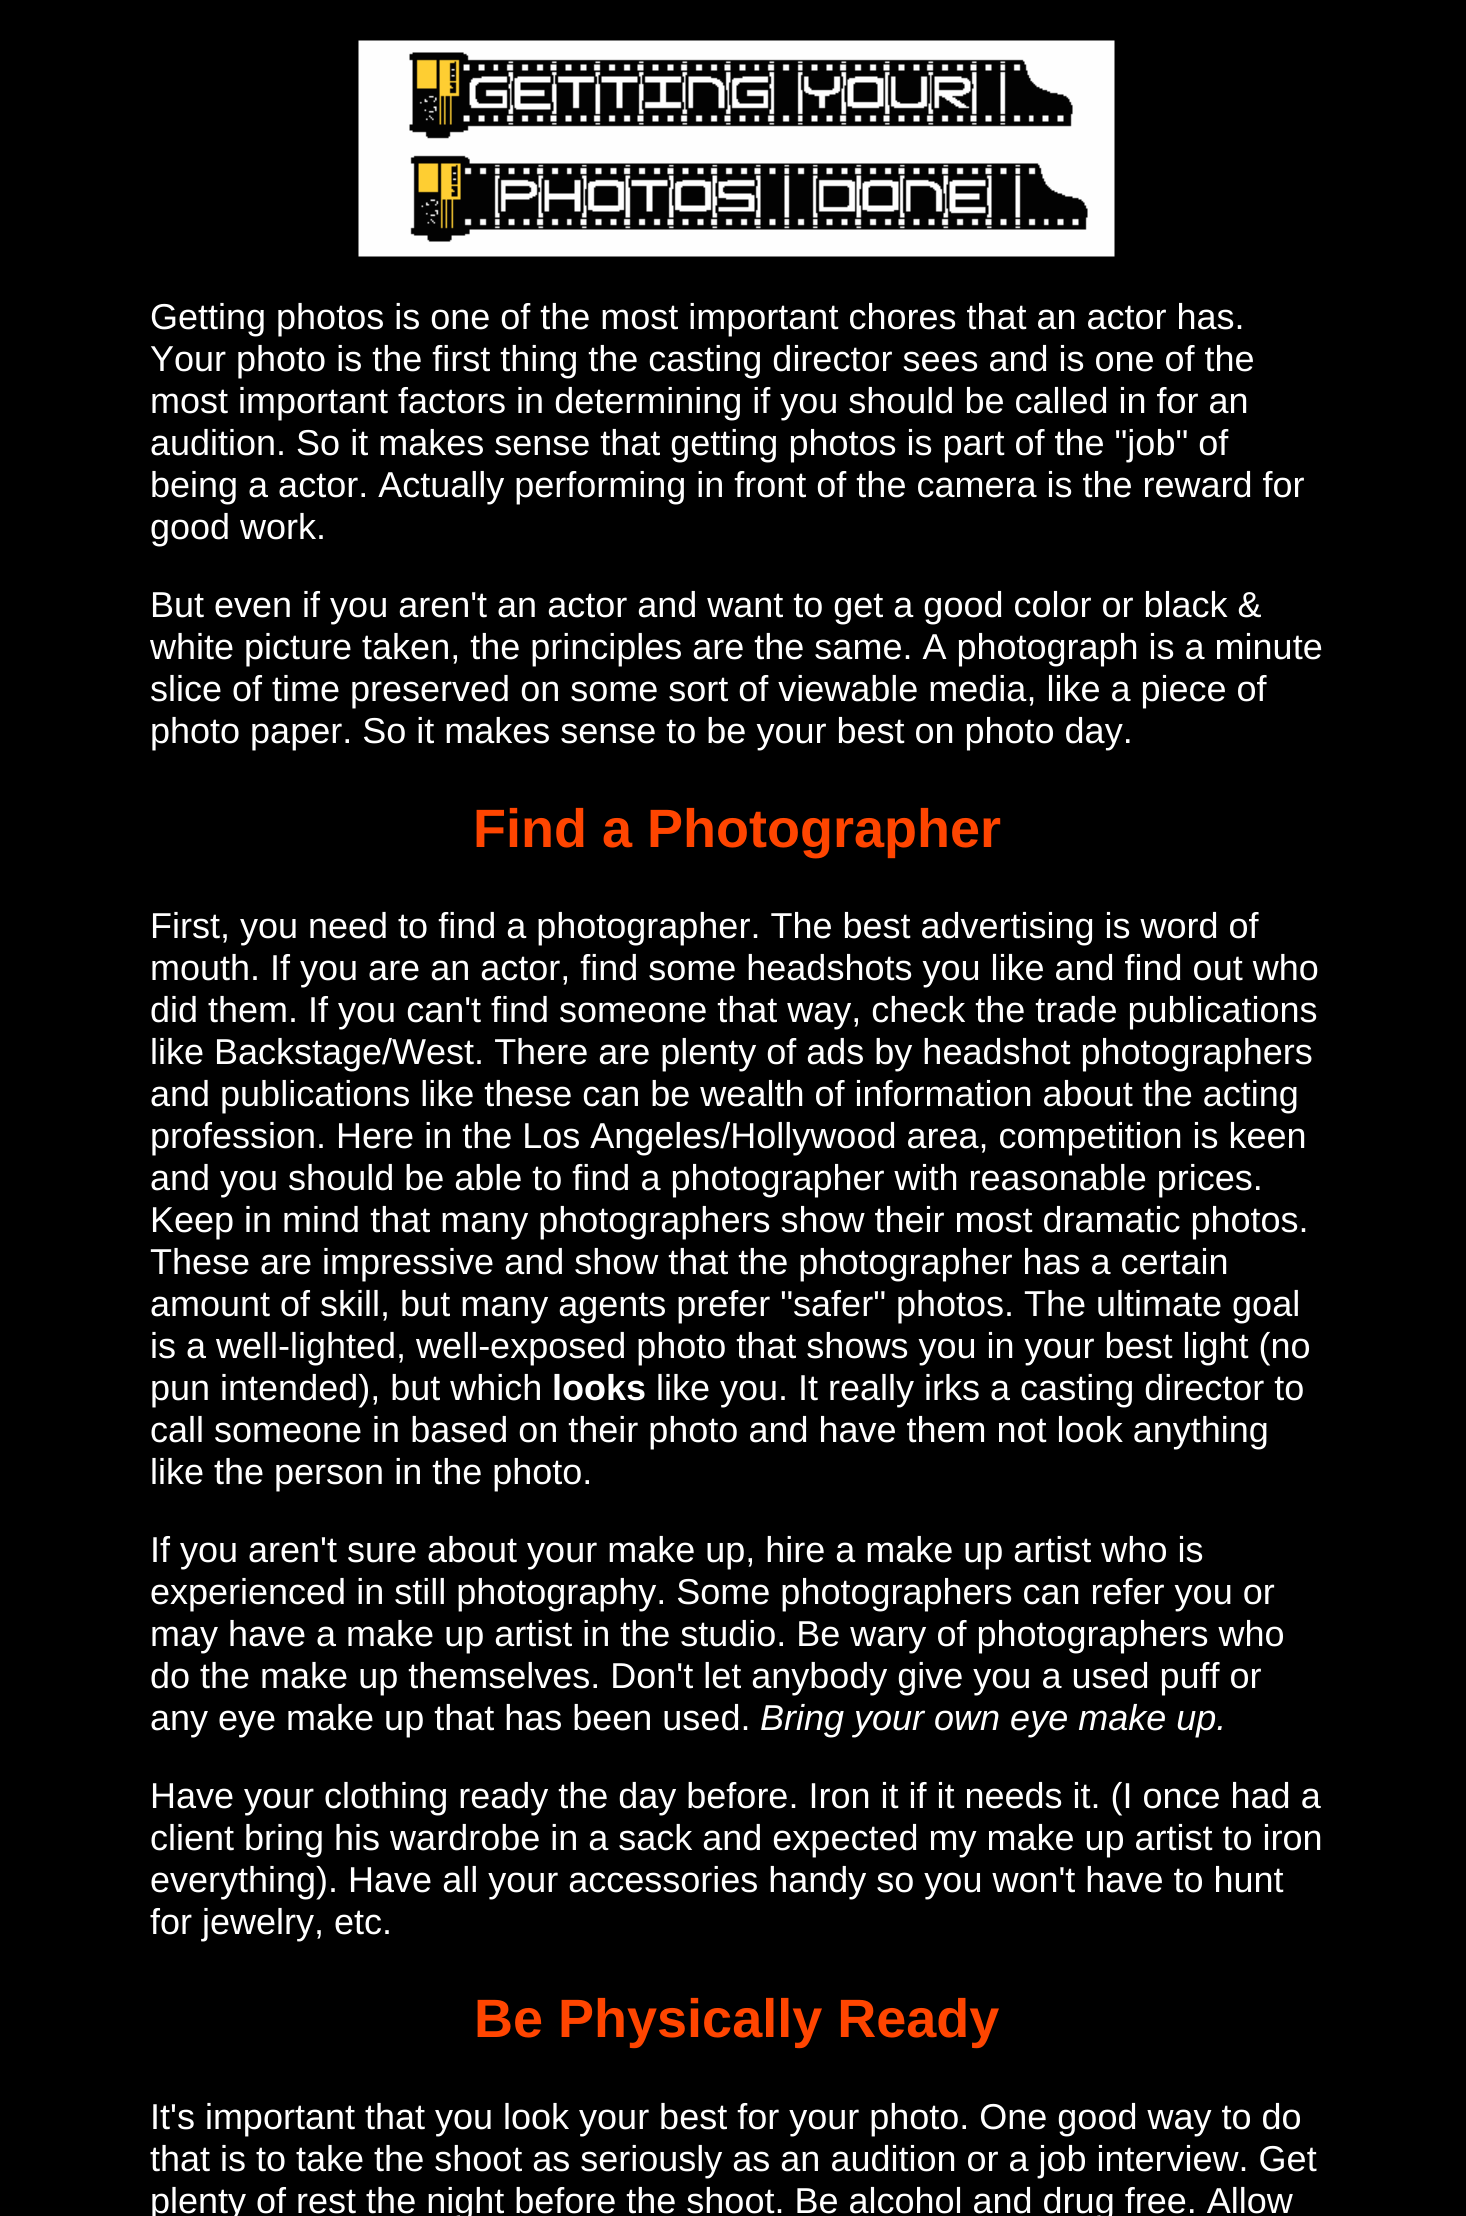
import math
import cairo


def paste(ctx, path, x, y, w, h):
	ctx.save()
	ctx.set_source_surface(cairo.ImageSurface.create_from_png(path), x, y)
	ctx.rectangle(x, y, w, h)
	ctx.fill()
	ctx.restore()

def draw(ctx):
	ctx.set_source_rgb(0, 0, 0)
	ctx.paint()
	paste(ctx, 'media/1.png', 358, 40, 757, 217)
	ctx.select_font_face('Liberation Sans')
	ctx.set_font_size(36)
	ctx.set_source_rgb(1, 1, 1)
	for x, y, s in [
		(150, 329, 'Getting photos is one of the most important chores that an actor has.'),
		(150, 371, 'Your photo is the first thing the casting director sees and is one of the'),
		(150, 413, 'most important factors in determining if you should be called in for an'),
		(150, 455, 'audition. So it makes sense that getting photos is part of the "job" of'),
		(150, 497, 'being a actor. Actually performing in front of the camera is the reward for'),
		(150, 539, 'good work.'),
		(150, 617, 'But even if you aren\'t an actor and want to get a good color or black &'),
		(150, 659, 'white picture taken, the principles are the same. A photograph is a minute'),
		(150, 701, 'slice of time preserved on some sort of viewable media, like a piece of'),
		(150, 743, 'photo paper. So it makes sense to be your best on photo day.'),
	]:
		ctx.move_to(x, y)
		ctx.show_text(s)
	ctx.select_font_face('Liberation Sans', cairo.FONT_SLANT_NORMAL, cairo.FONT_WEIGHT_BOLD)
	ctx.set_font_size(54)
	ctx.set_source_rgb(1, 0.271, 0)
	ctx.move_to(473, 847)
	ctx.show_text('Find a Photographer')
	ctx.select_font_face('Liberation Sans')
	ctx.set_font_size(36)
	ctx.set_source_rgb(1, 1, 1)
	for x, y, s in [
		(150, 938, 'First, you need to find a photographer. The best advertising is word of'),
		(150, 980, 'mouth. If you are an actor, find some headshots you like and find out who'),
		(150, 1022, 'did them. If you can\'t find someone that way, check the trade publications'),
		(150, 1064, 'like Backstage/West. There are plenty of ads by headshot photographers'),
		(150, 1106, 'and publications like these can be wealth of information about the acting'),
		(150, 1148, 'profession. Here in the Los Angeles/Hollywood area, competition is keen'),
		(150, 1190, 'and you should be able to find a photographer with reasonable prices.'),
		(150, 1232, 'Keep in mind that many photographers show their most dramatic photos.'),
		(150, 1274, 'These are impressive and show that the photographer has a certain'),
		(150, 1316, 'amount of skill, but many agents prefer "safer" photos. The ultimate goal'),
		(150, 1358, 'is a well-lighted, well-exposed photo that shows you in your best light (no'),
		(150, 1400, 'pun intended), but which'),
	]:
		ctx.move_to(x, y)
		ctx.show_text(s)
	ctx.select_font_face('Liberation Sans', cairo.FONT_SLANT_NORMAL, cairo.FONT_WEIGHT_BOLD)
	ctx.move_to(552, 1400)
	ctx.show_text('looks')
	ctx.select_font_face('Liberation Sans')
	for x, y, s in [
		(656, 1400, 'like you. It really irks a casting director to'),
		(150, 1442, 'call someone in based on their photo and have them not look anything'),
		(150, 1484, 'like the person in the photo.'),
		(150, 1562, 'If you aren\'t sure about your make up, hire a make up artist who is'),
		(150, 1604, 'experienced in still photography. Some photographers can refer you or'),
		(150, 1646, 'may have a make up artist in the studio. Be wary of photographers who'),
		(150, 1688, 'do the make up themselves. Don\'t let anybody give you a used puff or'),
		(150, 1730, 'any eye make up that has been used.'),
	]:
		ctx.move_to(x, y)
		ctx.show_text(s)
	ctx.select_font_face('Liberation Sans', cairo.FONT_SLANT_ITALIC)
	ctx.move_to(760, 1730)
	ctx.show_text('Bring your own eye make up.')
	ctx.select_font_face('Liberation Sans')
	for x, y, s in [
		(150, 1808, 'Have your clothing ready the day before. Iron it if it needs it. (I once had a'),
		(150, 1850, 'client bring his wardrobe in a sack and expected my make up artist to iron'),
		(150, 1892, 'everything). Have all your accessories handy so you won\'t have to hunt'),
		(150, 1934, 'for jewelry, etc.'),
	]:
		ctx.move_to(x, y)
		ctx.show_text(s)
	ctx.select_font_face('Liberation Sans', cairo.FONT_SLANT_NORMAL, cairo.FONT_WEIGHT_BOLD)
	ctx.set_font_size(54)
	ctx.set_source_rgb(1, 0.271, 0)
	ctx.move_to(474, 2037)
	ctx.show_text('Be Physically Ready')
	ctx.select_font_face('Liberation Sans')
	ctx.set_font_size(36)
	ctx.set_source_rgb(1, 1, 1)
	for x, y, s in [
		(150, 2129, 'It\'s important that you look your best for your photo. One good way to do'),
		(150, 2171, 'that is to take the shoot as seriously as an audition or a job interview. Get'),
		(150, 2213, 'plenty of rest the night before the shoot. Be alcohol and drug free. Allow'),
	]:
		ctx.move_to(x, y)
		ctx.show_text(s)


surface = cairo.ImageSurface(cairo.FORMAT_RGB24, 1466, 2216)
ctx = cairo.Context(surface)
options = cairo.FontOptions()
options.set_hint_metrics(cairo.HINT_METRICS_OFF)
options.set_hint_style(cairo.HINT_STYLE_NONE)
ctx.set_font_options(options)
ctx.set_miter_limit(4)
draw(ctx)
surface.write_to_png('image.png')
